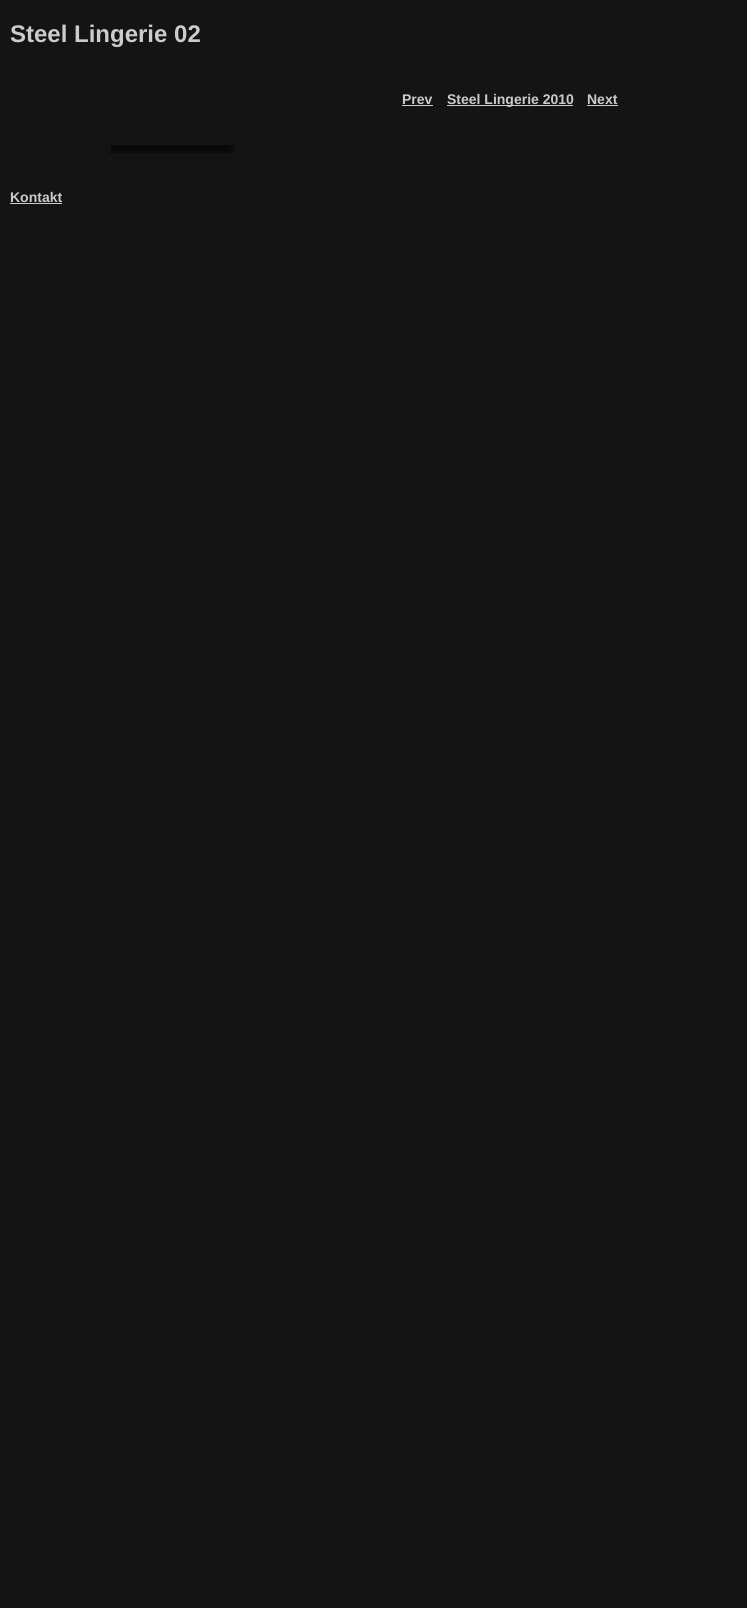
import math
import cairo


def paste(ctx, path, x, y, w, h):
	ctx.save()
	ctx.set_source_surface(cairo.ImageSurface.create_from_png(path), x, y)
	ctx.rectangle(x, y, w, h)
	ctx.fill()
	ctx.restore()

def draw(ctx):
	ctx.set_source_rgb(0.082, 0.082, 0.082)
	ctx.paint()
	ctx.select_font_face('Liberation Sans', cairo.FONT_SLANT_NORMAL, cairo.FONT_WEIGHT_BOLD)
	ctx.set_font_size(24)
	ctx.set_source_rgb(0.8, 0.8, 0.8)
	ctx.move_to(10, 42)
	ctx.show_text('Steel Lingerie 02')
	ctx.set_font_size(14)
	ctx.move_to(402, 104)
	ctx.show_text('Prev')
	ctx.rectangle(402, 105, 31, 1)
	ctx.fill()
	ctx.rectangle(447, 105, 126, 1)
	ctx.fill()
	ctx.move_to(447, 104)
	ctx.show_text('Steel Lingerie 2010')
	ctx.move_to(587, 104)
	ctx.show_text('Next')
	ctx.rectangle(587, 105, 31, 1)
	ctx.fill()
	paste(ctx, 'media/1.png', 111, 145, 124, 9)
	paste(ctx, 'media/2.png', 232, 141, 2, 4)
	paste(ctx, 'media/3.png', 107, 152, 4, 2)
	ctx.move_to(10, 202)
	ctx.show_text('Kontakt')
	ctx.rectangle(10, 203, 52, 1)
	ctx.fill()


surface = cairo.ImageSurface(cairo.FORMAT_RGB24, 747, 1608)
ctx = cairo.Context(surface)
options = cairo.FontOptions()
options.set_hint_metrics(cairo.HINT_METRICS_OFF)
options.set_hint_style(cairo.HINT_STYLE_NONE)
ctx.set_font_options(options)
ctx.set_miter_limit(4)
draw(ctx)
surface.write_to_png('image.png')
